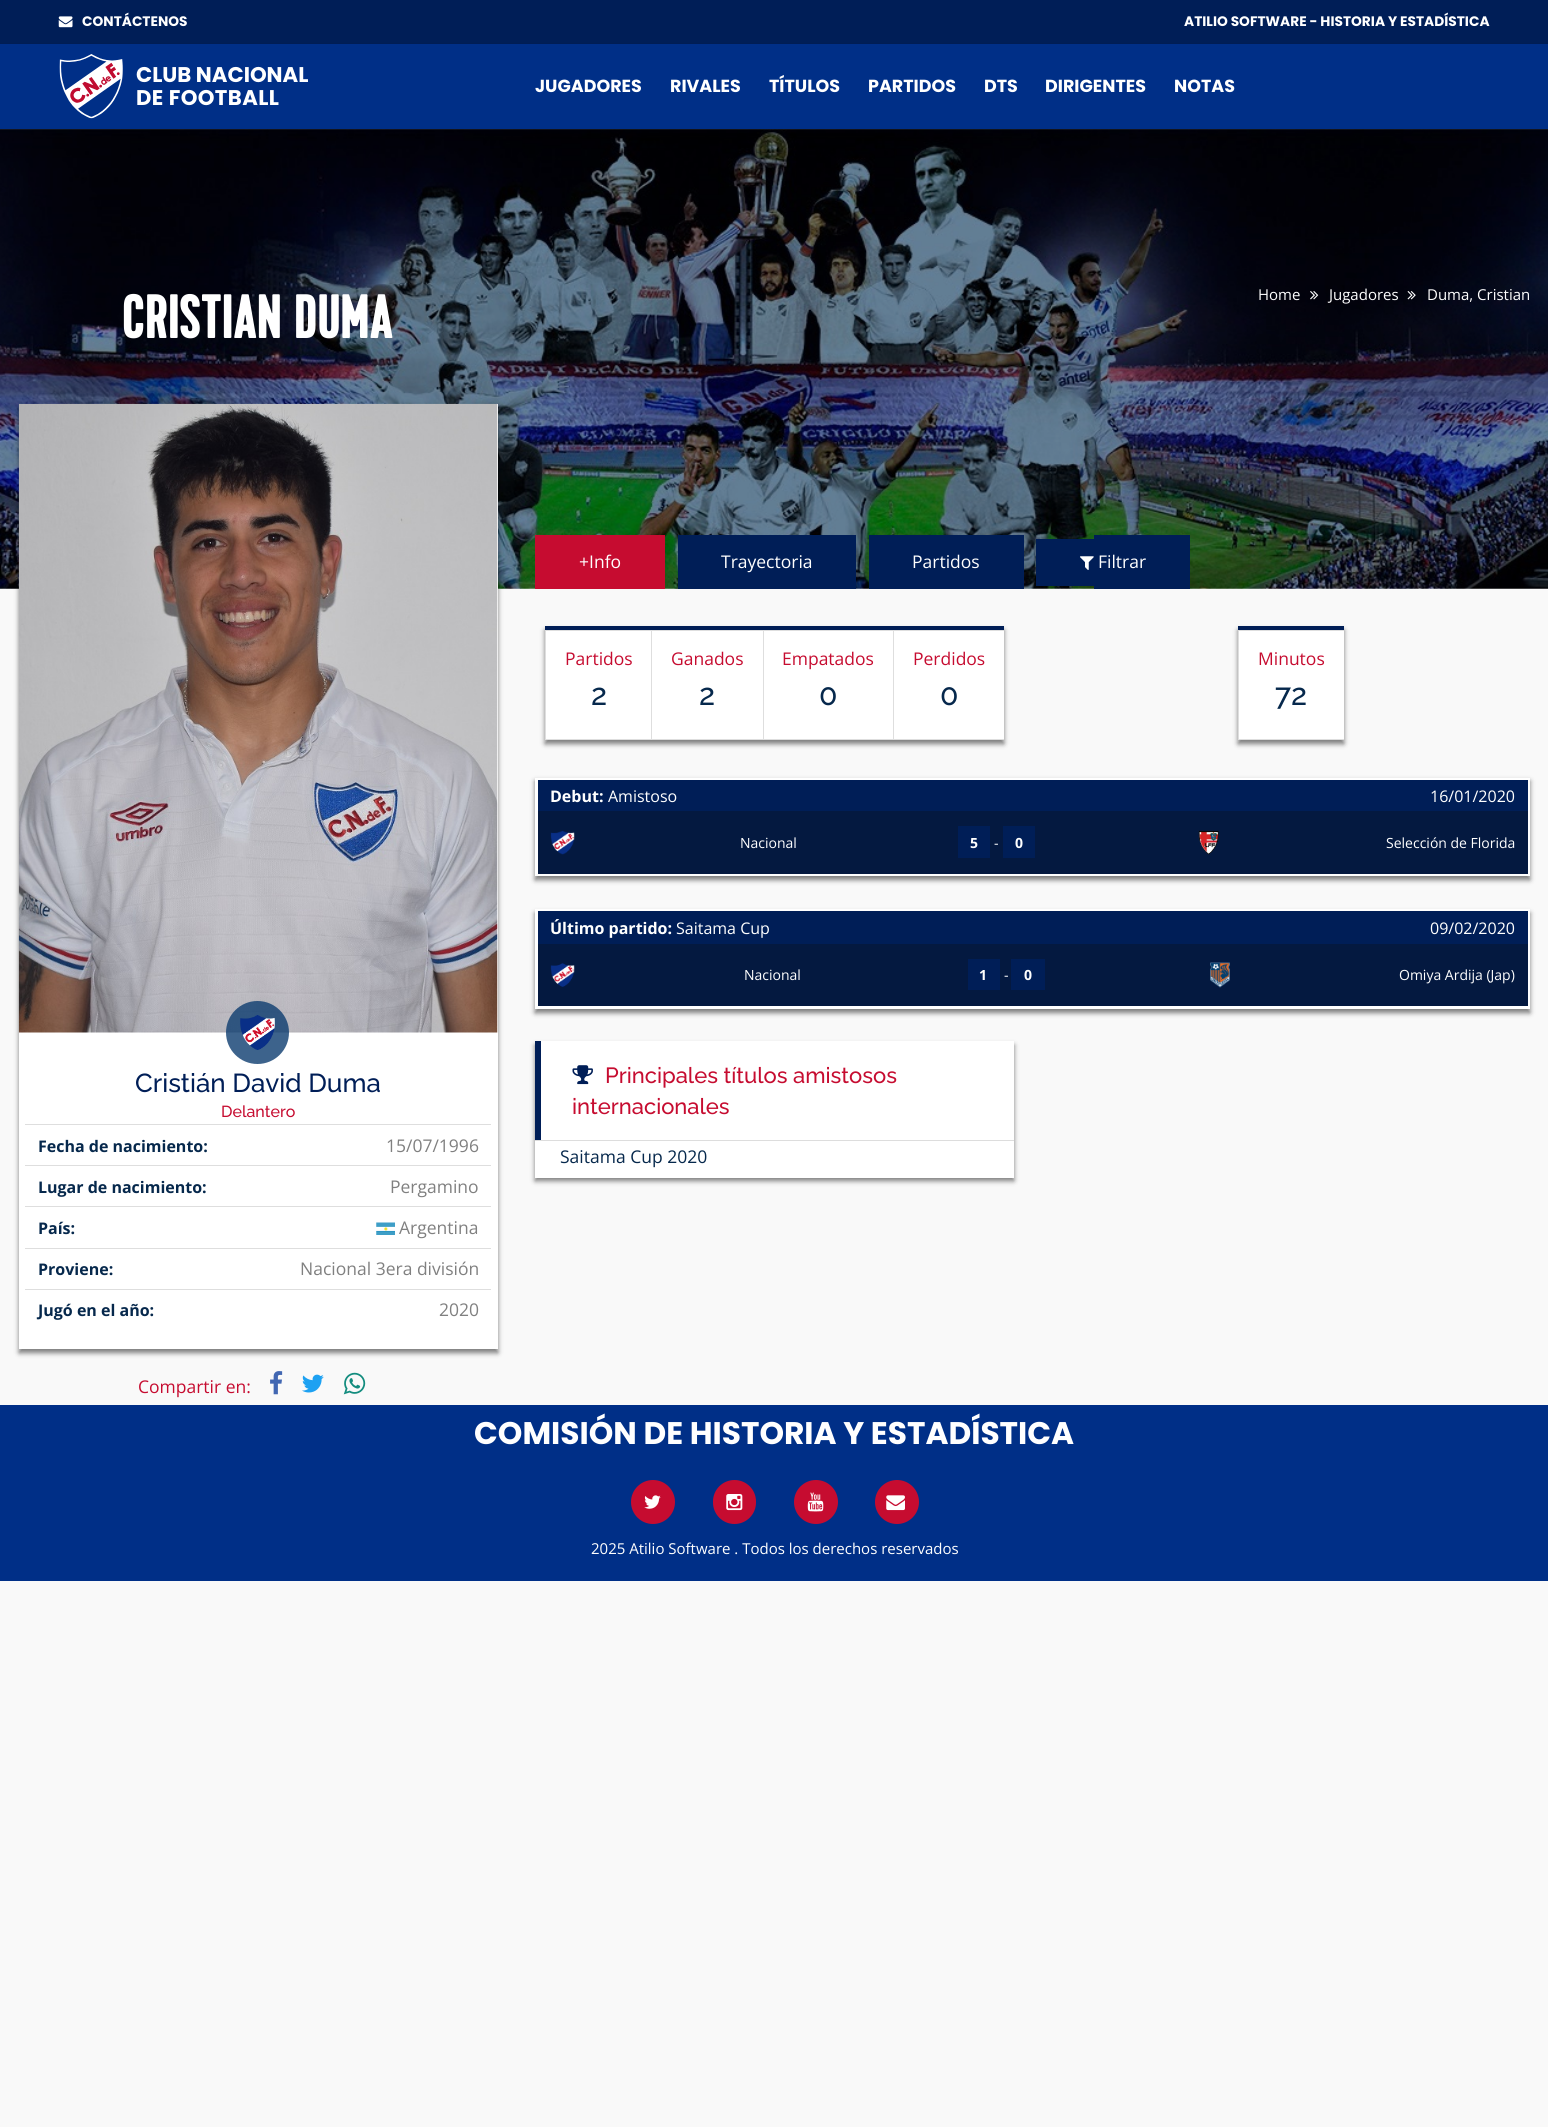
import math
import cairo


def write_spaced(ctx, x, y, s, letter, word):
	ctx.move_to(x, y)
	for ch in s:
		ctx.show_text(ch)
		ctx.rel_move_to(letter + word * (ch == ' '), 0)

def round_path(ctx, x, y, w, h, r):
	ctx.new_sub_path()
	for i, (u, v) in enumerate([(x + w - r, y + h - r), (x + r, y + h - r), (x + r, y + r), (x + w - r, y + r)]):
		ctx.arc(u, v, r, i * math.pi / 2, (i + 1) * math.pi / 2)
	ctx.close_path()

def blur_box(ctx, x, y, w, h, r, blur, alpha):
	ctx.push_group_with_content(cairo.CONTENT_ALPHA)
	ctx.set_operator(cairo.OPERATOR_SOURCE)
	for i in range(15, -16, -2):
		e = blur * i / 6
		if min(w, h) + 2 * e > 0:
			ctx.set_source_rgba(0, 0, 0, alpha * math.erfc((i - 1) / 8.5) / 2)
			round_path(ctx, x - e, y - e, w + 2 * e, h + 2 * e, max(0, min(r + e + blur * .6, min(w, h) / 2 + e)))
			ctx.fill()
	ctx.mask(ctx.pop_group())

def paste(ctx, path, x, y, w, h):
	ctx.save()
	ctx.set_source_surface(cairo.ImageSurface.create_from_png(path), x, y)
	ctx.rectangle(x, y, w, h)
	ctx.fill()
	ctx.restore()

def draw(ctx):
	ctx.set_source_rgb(0.973, 0.973, 0.973)
	ctx.paint()
	ctx.set_source_rgb(0, 0.118, 0.341)
	ctx.rectangle(0, 0, 1548, 44)
	ctx.fill()
	paste(ctx, 'media/1.png', 58, 16, 15, 12)
	ctx.select_font_face('Poppins', cairo.FONT_SLANT_NORMAL, cairo.FONT_WEIGHT_BOLD)
	ctx.set_font_size(13.75)
	ctx.set_source_rgb(1, 1, 1)
	ctx.move_to(82, 26)
	ctx.show_text('CONTÁCTENOS')
	ctx.move_to(1184, 26)
	ctx.show_text('ATILIO SOFTWARE - HISTORIA Y ESTADÍSTICA')
	paste(ctx, 'media/3.png', 0, 129, 1548, 460)
	ctx.set_source_rgb(0, 0, 0)
	blur_box(ctx, 0, 46, 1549, 85, 0, 2.5, 0.15)
	ctx.set_source_rgb(0, 0.184, 0.529)
	ctx.rectangle(0, 44, 1548, 85)
	ctx.fill()
	paste(ctx, 'media/2.png', 59, 54, 64, 65)
	ctx.set_font_size(21.25)
	ctx.set_source_rgb(1, 1, 1)
	ctx.move_to(136, 82)
	ctx.show_text('CLUB NACIONAL')
	write_spaced(ctx, 136, 105, 'DE FOOTBALL', 0.4, 0)
	ctx.set_font_size(17.5)
	for x, y, s in [
		(535, 92, 'JUGADORES'),
		(670, 92, 'RIVALES'),
		(769, 92, 'TÍTULOS'),
		(868, 92, 'PARTIDOS'),
		(984, 92, 'DTS'),
		(1045, 92, 'DIRIGENTES'),
		(1174, 92, 'NOTAS'),
	]:
		ctx.move_to(x, y)
		ctx.show_text(s)
	ctx.select_font_face('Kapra', cairo.FONT_SLANT_NORMAL, cairo.FONT_WEIGHT_BOLD)
	ctx.set_font_size(62.5)
	ctx.move_to(122, 338)
	ctx.show_text('CRISTIAN DUMA')
	ctx.select_font_face('Open Sans')
	ctx.set_font_size(15)
	ctx.move_to(1258, 300)
	ctx.show_text('Home')
	paste(ctx, 'media/4.png', 1310, 291, 9, 9)
	ctx.move_to(1329, 300)
	ctx.show_text('Jugadores')
	paste(ctx, 'media/5.png', 1407, 291, 9, 9)
	ctx.move_to(1427, 300)
	ctx.show_text('Duma, Cristian')
	ctx.set_source_rgb(0.776, 0.047, 0.188)
	ctx.rectangle(535, 535, 130, 54)
	ctx.fill()
	ctx.set_font_size(17.5)
	ctx.set_source_rgb(1, 1, 1)
	ctx.move_to(579, 568)
	ctx.show_text('+Info')
	ctx.set_source_rgb(0, 0.118, 0.341)
	ctx.rectangle(678, 535, 178, 54)
	ctx.fill()
	ctx.set_source_rgb(1, 1, 1)
	ctx.move_to(721, 568)
	ctx.show_text('Trayectoria')
	ctx.set_source_rgb(0, 0.118, 0.341)
	ctx.rectangle(869, 535, 155, 54)
	ctx.fill()
	ctx.set_source_rgb(1, 1, 1)
	ctx.move_to(912, 568)
	ctx.show_text('Partidos')
	ctx.set_source_rgb(0, 0.118, 0.341)
	ctx.rectangle(1036, 539, 58, 47)
	ctx.fill()
	ctx.rectangle(1094, 535, 96, 54)
	ctx.fill()
	paste(ctx, 'media/6.png', 1080, 556, 14, 14)
	ctx.set_source_rgb(1, 1, 1)
	ctx.move_to(1098, 568)
	ctx.show_text('Filtrar')
	ctx.set_source_rgb(0, 0, 0)
	blur_box(ctx, 545, 630, 459, 114, 0, 2.5, 0.5)
	ctx.set_source_rgb(1, 1, 1)
	ctx.rectangle(546, 631, 458, 108)
	ctx.fill()
	ctx.set_source_rgb(0, 0.118, 0.341)
	ctx.rectangle(545, 626, 459, 4)
	ctx.fill()
	ctx.set_source_rgb(0.871, 0.871, 0.871)
	ctx.rectangle(545, 630, 459, 1)
	ctx.rectangle(545, 739, 459, 1)
	ctx.rectangle(545, 630, 1, 110)
	ctx.fill()
	ctx.set_source_rgb(0.776, 0.047, 0.188)
	ctx.move_to(565, 665)
	ctx.show_text('Partidos')
	ctx.select_font_face('Raleway Medium')
	ctx.set_font_size(30)
	ctx.set_source_rgb(0.027, 0.157, 0.298)
	ctx.move_to(591, 705)
	ctx.show_text('2')
	ctx.set_source_rgb(0.871, 0.871, 0.871)
	ctx.rectangle(651, 630, 1, 110)
	ctx.fill()
	ctx.select_font_face('Open Sans')
	ctx.set_font_size(17.5)
	ctx.set_source_rgb(0.776, 0.047, 0.188)
	ctx.move_to(671, 665)
	ctx.show_text('Ganados')
	ctx.select_font_face('Raleway Medium')
	ctx.set_font_size(30)
	ctx.set_source_rgb(0.027, 0.157, 0.298)
	ctx.move_to(699, 705)
	ctx.show_text('2')
	ctx.set_source_rgb(0.871, 0.871, 0.871)
	ctx.rectangle(763, 630, 1, 110)
	ctx.fill()
	ctx.select_font_face('Open Sans')
	ctx.set_font_size(17.5)
	ctx.set_source_rgb(0.776, 0.047, 0.188)
	ctx.move_to(782, 665)
	ctx.show_text('Empatados')
	ctx.select_font_face('Raleway Medium')
	ctx.set_font_size(30)
	ctx.set_source_rgb(0.027, 0.157, 0.298)
	ctx.move_to(819, 705)
	ctx.show_text('0')
	ctx.set_source_rgb(0.871, 0.871, 0.871)
	ctx.rectangle(893, 630, 1, 110)
	ctx.fill()
	ctx.select_font_face('Open Sans')
	ctx.set_font_size(17.5)
	ctx.set_source_rgb(0.776, 0.047, 0.188)
	ctx.move_to(913, 665)
	ctx.show_text('Perdidos')
	ctx.select_font_face('Raleway Medium')
	ctx.set_font_size(30)
	ctx.set_source_rgb(0.027, 0.157, 0.298)
	ctx.move_to(940, 705)
	ctx.show_text('0')
	ctx.set_source_rgb(0, 0, 0)
	blur_box(ctx, 1238, 630, 106, 114, 0, 2.5, 0.5)
	ctx.set_source_rgb(1, 1, 1)
	ctx.rectangle(1239, 631, 105, 108)
	ctx.fill()
	ctx.set_source_rgb(0, 0.118, 0.341)
	ctx.rectangle(1238, 626, 106, 4)
	ctx.fill()
	ctx.set_source_rgb(0.871, 0.871, 0.871)
	ctx.rectangle(1238, 630, 106, 1)
	ctx.rectangle(1238, 739, 106, 1)
	ctx.rectangle(1238, 630, 1, 110)
	ctx.fill()
	ctx.select_font_face('Open Sans')
	ctx.set_font_size(17.5)
	ctx.set_source_rgb(0.776, 0.047, 0.188)
	ctx.move_to(1258, 665)
	ctx.show_text('Minutos')
	ctx.select_font_face('Raleway Medium')
	ctx.set_font_size(30)
	ctx.set_source_rgb(0.027, 0.157, 0.298)
	ctx.move_to(1275, 705)
	ctx.show_text('72')
	ctx.set_source_rgb(0, 0, 0)
	blur_box(ctx, 535, 781, 995, 99, 0, 2.5, 0.5)
	ctx.set_source_rgb(1, 1, 1)
	ctx.rectangle(535, 778, 995, 98)
	ctx.fill()
	ctx.set_source_rgb(0, 0.118, 0.341)
	ctx.rectangle(538, 780, 990, 31)
	ctx.fill()
	ctx.select_font_face('Open Sans', cairo.FONT_SLANT_NORMAL, cairo.FONT_WEIGHT_BOLD)
	ctx.set_font_size(16)
	ctx.set_source_rgb(1, 1, 1)
	ctx.move_to(550, 802)
	ctx.show_text('Debut:')
	ctx.select_font_face('Open Sans')
	ctx.move_to(608, 802)
	ctx.show_text('Amistoso')
	ctx.move_to(1430, 802)
	ctx.show_text('16/01/2020')
	ctx.set_source_rgb(0.016, 0.098, 0.251)
	ctx.rectangle(538, 811, 990, 63)
	ctx.fill()
	paste(ctx, 'media/7.png', 550, 830, 25, 25)
	ctx.set_font_size(14)
	ctx.set_source_rgb(1, 1, 1)
	ctx.move_to(740, 848)
	ctx.show_text('Nacional')
	ctx.set_source_rgb(0, 0.118, 0.341)
	ctx.rectangle(958, 826, 32, 32)
	ctx.fill()
	ctx.select_font_face('Open Sans', cairo.FONT_SLANT_NORMAL, cairo.FONT_WEIGHT_BOLD)
	ctx.set_source_rgb(1, 1, 1)
	ctx.move_to(970, 848)
	ctx.show_text('5')
	ctx.select_font_face('Open Sans')
	ctx.move_to(994, 848)
	ctx.show_text('-')
	ctx.set_source_rgb(0, 0.118, 0.341)
	ctx.rectangle(1003, 826, 32, 32)
	ctx.fill()
	ctx.select_font_face('Open Sans', cairo.FONT_SLANT_NORMAL, cairo.FONT_WEIGHT_BOLD)
	ctx.set_source_rgb(1, 1, 1)
	ctx.move_to(1015, 848)
	ctx.show_text('0')
	paste(ctx, 'media/8.png', 1198, 830, 21, 25)
	ctx.select_font_face('Open Sans')
	ctx.move_to(1386, 848)
	ctx.show_text('Selección de Florida')
	ctx.set_source_rgb(0, 0, 0)
	blur_box(ctx, 535, 913, 995, 100, 0, 2.5, 0.5)
	ctx.set_source_rgb(1, 1, 1)
	ctx.rectangle(535, 909, 995, 100)
	ctx.fill()
	ctx.set_source_rgb(0, 0.118, 0.341)
	ctx.rectangle(538, 911, 990, 33)
	ctx.fill()
	ctx.select_font_face('Open Sans', cairo.FONT_SLANT_NORMAL, cairo.FONT_WEIGHT_BOLD)
	ctx.set_font_size(16)
	ctx.set_source_rgb(1, 1, 1)
	ctx.move_to(550, 934)
	ctx.show_text('Último partido:')
	ctx.select_font_face('Open Sans')
	ctx.move_to(676, 934)
	ctx.show_text('Saitama Cup')
	ctx.move_to(1430, 934)
	ctx.show_text('09/02/2020')
	ctx.set_source_rgb(0.016, 0.098, 0.251)
	ctx.rectangle(538, 944, 990, 62)
	ctx.fill()
	paste(ctx, 'media/9.png', 550, 963, 25, 24)
	ctx.set_font_size(14)
	ctx.set_source_rgb(1, 1, 1)
	ctx.move_to(744, 980)
	ctx.show_text('Nacional')
	ctx.set_source_rgb(0, 0.118, 0.341)
	ctx.rectangle(968, 959, 32, 31)
	ctx.fill()
	ctx.select_font_face('Open Sans', cairo.FONT_SLANT_NORMAL, cairo.FONT_WEIGHT_BOLD)
	ctx.set_source_rgb(1, 1, 1)
	ctx.move_to(979, 980)
	ctx.show_text('1')
	ctx.select_font_face('Open Sans')
	ctx.move_to(1004, 980)
	ctx.show_text('-')
	ctx.set_source_rgb(0, 0.118, 0.341)
	ctx.rectangle(1011, 959, 34, 31)
	ctx.fill()
	ctx.select_font_face('Open Sans', cairo.FONT_SLANT_NORMAL, cairo.FONT_WEIGHT_BOLD)
	ctx.set_source_rgb(1, 1, 1)
	ctx.move_to(1024, 980)
	ctx.show_text('0')
	paste(ctx, 'media/10.png', 1210, 962, 20, 26)
	ctx.select_font_face('Open Sans')
	ctx.move_to(1399, 980)
	ctx.show_text('Omiya Ardija (Jap)')
	ctx.set_source_rgb(0, 0, 0)
	blur_box(ctx, 535, 1045, 479, 136, 0, 2.5, 0.5)
	ctx.set_source_rgb(1, 1, 1)
	ctx.rectangle(535, 1041, 479, 137)
	ctx.fill()
	ctx.set_source_rgb(0.867, 0.867, 0.867)
	ctx.rectangle(535, 1140, 479, 1)
	ctx.fill()
	ctx.set_source_rgb(0, 0.118, 0.341)
	ctx.rectangle(535, 1041, 6, 99)
	ctx.fill()
	paste(ctx, 'media/11.png', 572, 1065, 21, 20)
	ctx.select_font_face('Raleway Medium')
	ctx.set_font_size(22)
	ctx.set_source_rgb(0.776, 0.047, 0.188)
	ctx.move_to(605, 1083)
	ctx.show_text('Principales títulos amistosos')
	ctx.move_to(572, 1114)
	ctx.show_text('internacionales')
	ctx.select_font_face('Open Sans')
	ctx.set_font_size(17.5)
	ctx.set_source_rgb(0.027, 0.157, 0.298)
	ctx.move_to(560, 1163)
	ctx.show_text('Saitama Cup 2020')
	ctx.set_source_rgb(0, 0, 0)
	blur_box(ctx, 19, 408, 479, 945, 0, 2.5, 0.5)
	ctx.set_source_rgb(1, 1, 1)
	ctx.rectangle(19, 404, 479, 945)
	ctx.fill()
	paste(ctx, 'media/12.png', 18, 403, 480, 630)
	ctx.set_source_rgba(0.051, 0.235, 0.439, 0.8)
	ctx.arc(257.5, 1032.5, 31.5, 0, 2 * math.pi)
	ctx.fill()
	paste(ctx, 'media/13.png', 240, 1015, 35, 35)
	ctx.select_font_face('Raleway Medium')
	ctx.set_font_size(26)
	ctx.set_source_rgb(0, 0.118, 0.341)
	ctx.move_to(135, 1092)
	ctx.show_text('Cristián David Duma')
	ctx.set_font_size(16)
	ctx.set_source_rgb(0.776, 0.047, 0.188)
	ctx.move_to(221, 1117)
	ctx.show_text('Delantero')
	ctx.set_source_rgb(0.871, 0.871, 0.871)
	ctx.rectangle(25, 1124, 466, 1)
	ctx.fill()
	ctx.select_font_face('Open Sans', cairo.FONT_SLANT_NORMAL, cairo.FONT_WEIGHT_BOLD)
	ctx.set_source_rgb(0.027, 0.157, 0.298)
	ctx.move_to(38, 1152)
	ctx.show_text('Fecha de nacimiento:')
	ctx.select_font_face('Open Sans')
	ctx.set_font_size(17.5)
	ctx.set_source_rgb(0.502, 0.502, 0.502)
	ctx.move_to(386, 1152)
	ctx.show_text('15/07/1996')
	ctx.set_source_rgb(0.871, 0.871, 0.871)
	ctx.rectangle(25, 1165, 466, 1)
	ctx.fill()
	ctx.select_font_face('Open Sans', cairo.FONT_SLANT_NORMAL, cairo.FONT_WEIGHT_BOLD)
	ctx.set_font_size(16)
	ctx.set_source_rgb(0.027, 0.157, 0.298)
	ctx.move_to(38, 1193)
	ctx.show_text('Lugar de nacimiento:')
	ctx.select_font_face('Open Sans')
	ctx.set_font_size(17.5)
	ctx.set_source_rgb(0.502, 0.502, 0.502)
	ctx.move_to(390, 1193)
	ctx.show_text('Pergamino')
	ctx.set_source_rgb(0.871, 0.871, 0.871)
	ctx.rectangle(25, 1206, 466, 1)
	ctx.fill()
	ctx.select_font_face('Open Sans', cairo.FONT_SLANT_NORMAL, cairo.FONT_WEIGHT_BOLD)
	ctx.set_font_size(16)
	ctx.set_source_rgb(0.027, 0.157, 0.298)
	ctx.move_to(38, 1234)
	ctx.show_text('País:')
	paste(ctx, 'media/14.png', 376, 1222, 19, 13)
	ctx.select_font_face('Open Sans')
	ctx.set_font_size(17.5)
	ctx.set_source_rgb(0.502, 0.502, 0.502)
	ctx.move_to(399, 1234)
	ctx.show_text('Argentina')
	ctx.set_source_rgb(0.871, 0.871, 0.871)
	ctx.rectangle(25, 1248, 466, 1)
	ctx.fill()
	ctx.select_font_face('Open Sans', cairo.FONT_SLANT_NORMAL, cairo.FONT_WEIGHT_BOLD)
	ctx.set_font_size(16)
	ctx.set_source_rgb(0.027, 0.157, 0.298)
	ctx.move_to(38, 1275)
	ctx.show_text('Proviene:')
	ctx.select_font_face('Open Sans')
	ctx.set_font_size(17.5)
	ctx.set_source_rgb(0.502, 0.502, 0.502)
	ctx.move_to(300, 1275)
	ctx.show_text('Nacional 3era división')
	ctx.set_source_rgb(0.871, 0.871, 0.871)
	ctx.rectangle(25, 1289, 466, 1)
	ctx.fill()
	ctx.select_font_face('Open Sans', cairo.FONT_SLANT_NORMAL, cairo.FONT_WEIGHT_BOLD)
	ctx.set_font_size(16)
	ctx.set_source_rgb(0.027, 0.157, 0.298)
	ctx.move_to(38, 1316)
	ctx.show_text('Jugó en el año:')
	ctx.select_font_face('Open Sans')
	ctx.set_font_size(17.5)
	ctx.set_source_rgb(0.502, 0.502, 0.502)
	ctx.move_to(439, 1316)
	ctx.show_text('2020')
	ctx.set_source_rgb(0.776, 0.047, 0.188)
	ctx.move_to(138, 1393)
	ctx.show_text('Compartir en:')
	paste(ctx, 'media/15.png', 270, 1371, 13, 24)
	paste(ctx, 'media/16.png', 302, 1374, 22, 19)
	paste(ctx, 'media/17.png', 343, 1372, 23, 23)
	ctx.set_source_rgb(0, 0.184, 0.529)
	ctx.rectangle(0, 1405, 1548, 176)
	ctx.fill()
	ctx.select_font_face('Poppins', cairo.FONT_SLANT_NORMAL, cairo.FONT_WEIGHT_BOLD)
	ctx.set_font_size(31.25)
	ctx.set_source_rgb(1, 1, 1)
	ctx.move_to(474, 1444)
	ctx.show_text('COMISIÓN DE HISTORIA Y ESTADÍSTICA')
	ctx.set_source_rgb(0.776, 0.047, 0.188)
	ctx.new_path()
	ctx.arc(653, 1502, 22, 0, 2 * math.pi)
	ctx.fill()
	paste(ctx, 'media/18.png', 644, 1495, 17, 14)
	round_path(ctx, 713, 1480, 43, 44, 21.5)
	ctx.fill()
	paste(ctx, 'media/19.png', 726, 1494, 17, 17)
	ctx.arc(816, 1502, 22, 0, 2 * math.pi)
	ctx.fill()
	paste(ctx, 'media/20.png', 807, 1492, 17, 20)
	ctx.arc(897, 1502, 22, 0, 2 * math.pi)
	ctx.fill()
	paste(ctx, 'media/21.png', 886, 1495, 19, 16)
	ctx.select_font_face('Open Sans')
	ctx.set_font_size(15)
	ctx.set_source_rgb(1, 1, 1)
	ctx.move_to(591, 1554)
	ctx.show_text('2025 Atilio Software . Todos los derechos reservados')


surface = cairo.ImageSurface(cairo.FORMAT_RGB24, 1548, 2127)
ctx = cairo.Context(surface)
options = cairo.FontOptions()
options.set_hint_metrics(cairo.HINT_METRICS_OFF)
options.set_hint_style(cairo.HINT_STYLE_NONE)
ctx.set_font_options(options)
ctx.set_miter_limit(4)
draw(ctx)
surface.write_to_png('image.png')
